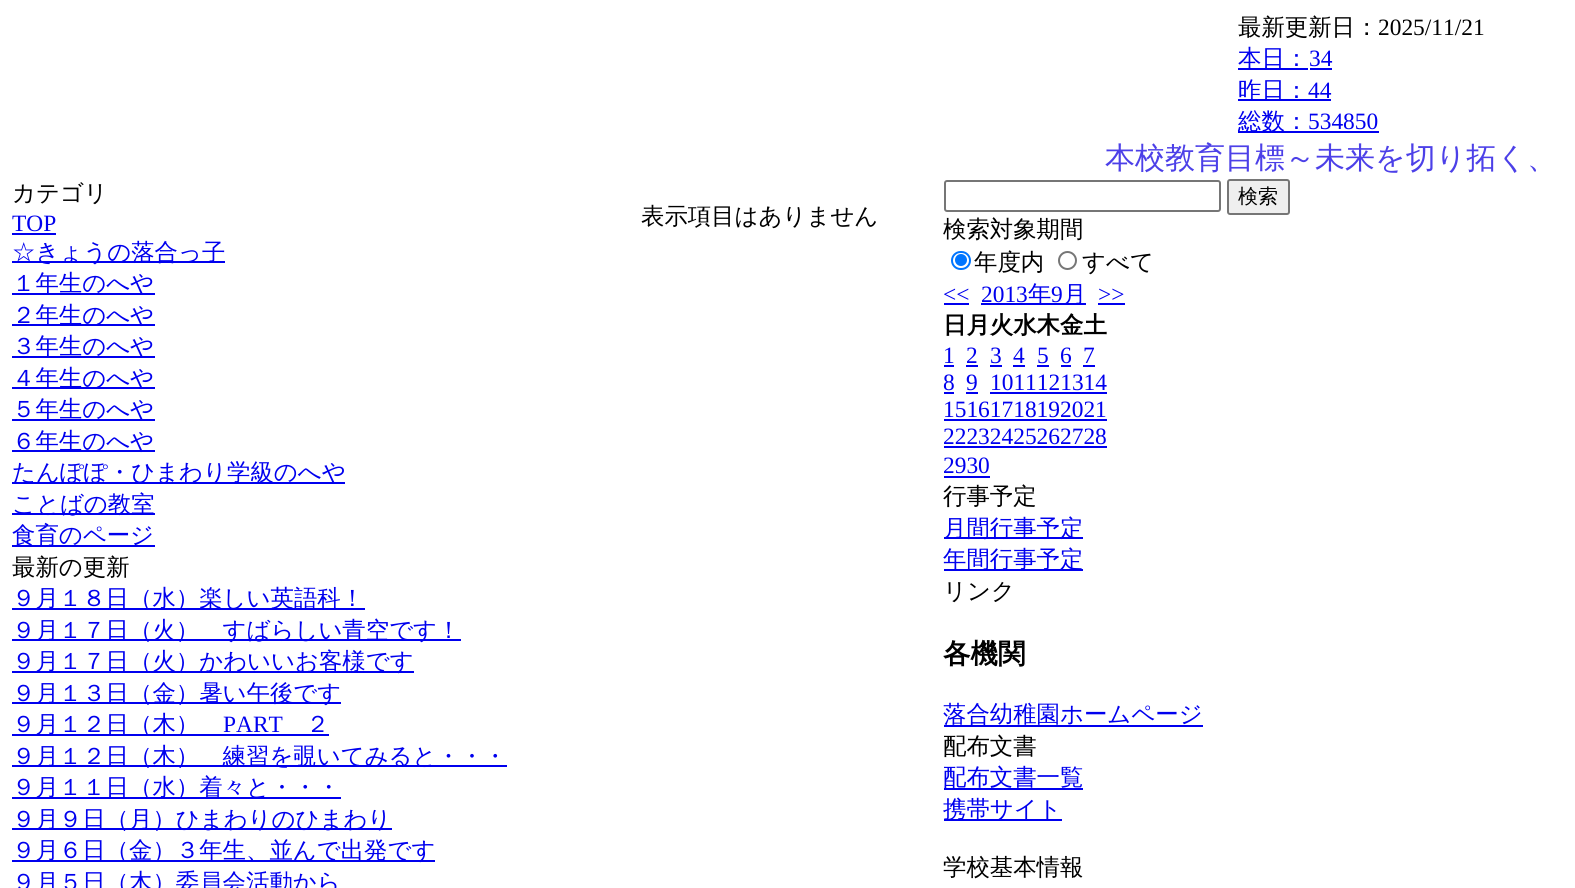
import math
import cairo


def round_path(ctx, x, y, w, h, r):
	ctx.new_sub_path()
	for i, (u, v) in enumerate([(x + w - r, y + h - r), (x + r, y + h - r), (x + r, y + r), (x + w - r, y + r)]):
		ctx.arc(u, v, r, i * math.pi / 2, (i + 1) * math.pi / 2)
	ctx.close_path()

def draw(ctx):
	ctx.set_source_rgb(1, 1, 1)
	ctx.paint()
	ctx.select_font_face('WenQuanYi Zen Hei Medium')
	ctx.set_font_size(23.4)
	ctx.set_source_rgb(0, 0, 0)
	ctx.move_to(1238, 35)
	ctx.show_text('最新更新日：')
	ctx.select_font_face('Liberation Serif')
	ctx.move_to(1378, 35)
	ctx.show_text('2025/11/21')
	ctx.set_source_rgb(0, 0, 0.933)
	ctx.rectangle(1238, 68, 70, 2)
	ctx.fill()
	ctx.select_font_face('WenQuanYi Zen Hei Medium')
	ctx.move_to(1238, 66)
	ctx.show_text('本日：')
	ctx.select_font_face('Liberation Serif')
	ctx.move_to(1309, 66)
	ctx.show_text('34')
	ctx.rectangle(1310, 68, 22, 2)
	ctx.fill()
	ctx.rectangle(1238, 99, 93, 2)
	ctx.fill()
	ctx.select_font_face('WenQuanYi Zen Hei Medium')
	ctx.move_to(1238, 98)
	ctx.show_text('昨日：')
	ctx.select_font_face('Liberation Serif')
	ctx.move_to(1308, 98)
	ctx.show_text('44')
	ctx.rectangle(1238, 131, 141, 2)
	ctx.fill()
	ctx.select_font_face('WenQuanYi Zen Hei Medium')
	ctx.move_to(1238, 129)
	ctx.show_text('総数：')
	ctx.select_font_face('Liberation Serif')
	ctx.move_to(1308, 129)
	ctx.show_text('534850')
	ctx.select_font_face('WenQuanYi Zen Hei Medium')
	ctx.set_font_size(30)
	ctx.set_source_rgb(0.298, 0.251, 0.91)
	ctx.move_to(1105, 168)
	ctx.show_text('本校教育目標～未来を切り拓く、')
	ctx.set_font_size(23.4)
	ctx.set_source_rgb(0, 0, 0)
	ctx.move_to(12, 201)
	ctx.show_text('カテゴリ')
	ctx.select_font_face('Liberation Serif')
	ctx.set_source_rgb(0, 0, 0.933)
	ctx.move_to(12, 231)
	ctx.show_text('TOP')
	ctx.rectangle(12, 233, 44, 2)
	ctx.fill()
	ctx.rectangle(12, 261, 213, 2)
	ctx.fill()
	ctx.select_font_face('WenQuanYi Zen Hei Medium')
	ctx.move_to(12, 260)
	ctx.show_text('☆きょうの落合っ子')
	ctx.rectangle(12, 293, 143, 2)
	ctx.fill()
	ctx.move_to(12, 291)
	ctx.show_text('１年生のへや')
	ctx.rectangle(12, 324, 143, 2)
	ctx.fill()
	ctx.move_to(12, 323)
	ctx.show_text('２年生のへや')
	ctx.rectangle(12, 356, 143, 2)
	ctx.fill()
	ctx.move_to(12, 354)
	ctx.show_text('３年生のへや')
	ctx.rectangle(12, 387, 143, 2)
	ctx.fill()
	ctx.move_to(12, 386)
	ctx.show_text('４年生のへや')
	ctx.rectangle(12, 419, 143, 2)
	ctx.fill()
	ctx.move_to(12, 417)
	ctx.show_text('５年生のへや')
	ctx.rectangle(12, 450, 143, 2)
	ctx.fill()
	ctx.move_to(12, 449)
	ctx.show_text('６年生のへや')
	ctx.rectangle(12, 482, 333, 2)
	ctx.fill()
	ctx.move_to(12, 480)
	ctx.show_text('たんぽぽ・ひまわり学級のへや')
	ctx.rectangle(12, 513, 143, 2)
	ctx.fill()
	ctx.move_to(12, 512)
	ctx.show_text('ことばの教室')
	ctx.rectangle(12, 545, 143, 2)
	ctx.fill()
	ctx.move_to(12, 543)
	ctx.show_text('食育のページ')
	ctx.set_source_rgb(0, 0, 0)
	ctx.move_to(12, 575)
	ctx.show_text('最新の更新')
	ctx.set_source_rgb(0, 0, 0.933)
	ctx.rectangle(12, 608, 353, 2)
	ctx.fill()
	ctx.move_to(12, 606)
	ctx.show_text('９月１８日（水）楽しい英語科！')
	ctx.rectangle(12, 639, 449, 2)
	ctx.fill()
	ctx.move_to(12, 638)
	ctx.show_text('９月１７日（火）　すばらしい青空です！')
	ctx.rectangle(12, 671, 402, 2)
	ctx.fill()
	ctx.move_to(12, 669)
	ctx.show_text('９月１７日（火）かわいいお客様です')
	ctx.rectangle(12, 702, 329, 2)
	ctx.fill()
	ctx.move_to(12, 701)
	ctx.show_text('９月１３日（金）暑い午後です')
	ctx.rectangle(12, 734, 317, 2)
	ctx.fill()
	ctx.move_to(12, 732)
	ctx.show_text('９月１２日（木）')
	ctx.select_font_face('Liberation Serif')
	ctx.move_to(223, 732)
	ctx.show_text('PART')
	ctx.select_font_face('WenQuanYi Zen Hei Medium')
	ctx.move_to(306, 732)
	ctx.show_text('２')
	ctx.rectangle(12, 765, 495, 2)
	ctx.fill()
	ctx.move_to(12, 764)
	ctx.show_text('９月１２日（木）　練習を覗いてみると・・・')
	ctx.rectangle(12, 797, 329, 2)
	ctx.fill()
	ctx.move_to(12, 795)
	ctx.show_text('９月１１日（水）着々と・・・')
	ctx.rectangle(12, 828, 380, 2)
	ctx.fill()
	ctx.move_to(12, 827)
	ctx.show_text('９月９日（月）ひまわりのひまわり')
	ctx.rectangle(12, 860, 423, 2)
	ctx.fill()
	ctx.move_to(12, 858)
	ctx.show_text('９月６日（金）３年生、並んで出発です')
	ctx.move_to(12, 890)
	ctx.show_text('９月５日（木）委員会活動から')
	ctx.set_source_rgb(0, 0, 0)
	ctx.move_to(641, 224)
	ctx.show_text('表示項目はありません')
	round_path(ctx, 945, 181, 275, 30, 2)
	ctx.set_source_rgb(0.463, 0.463, 0.463)
	ctx.stroke()
	ctx.set_source_rgb(0.937, 0.937, 0.937)
	round_path(ctx, 1228, 180, 61, 34, 2)
	ctx.fill_preserve()
	ctx.set_source_rgb(0.463, 0.463, 0.463)
	ctx.stroke()
	ctx.set_font_size(20)
	ctx.set_source_rgb(0, 0, 0)
	ctx.move_to(1238, 203)
	ctx.show_text('検索')
	ctx.set_font_size(23.4)
	ctx.move_to(943, 237)
	ctx.show_text('検索対象期間')
	round_path(ctx, 952, 252, 18, 17, 8.5)
	ctx.set_source_rgb(0, 0.459, 1)
	ctx.stroke()
	ctx.arc(961, 260, 6, 0, 2 * math.pi)
	ctx.fill()
	ctx.set_source_rgb(0, 0, 0)
	ctx.move_to(974, 270)
	ctx.show_text('年度内')
	ctx.new_path()
	ctx.arc(1067.5, 260.5, 8.5, 0, 2 * math.pi)
	ctx.set_source_rgb(0.463, 0.463, 0.463)
	ctx.stroke()
	ctx.set_source_rgb(0, 0, 0)
	ctx.move_to(1082, 270)
	ctx.show_text('すべて')
	ctx.select_font_face('Liberation Serif')
	ctx.set_source_rgb(0, 0, 0.933)
	ctx.move_to(943, 302)
	ctx.show_text('<<')
	ctx.rectangle(944, 303, 25, 2)
	ctx.fill()
	ctx.move_to(981, 302)
	ctx.show_text('2013')
	ctx.rectangle(981, 303, 105, 2)
	ctx.fill()
	ctx.select_font_face('WenQuanYi Zen Hei Medium')
	ctx.move_to(1028, 302)
	ctx.show_text('年')
	ctx.select_font_face('Liberation Serif')
	ctx.move_to(1051, 302)
	ctx.show_text('9')
	ctx.select_font_face('WenQuanYi Zen Hei Medium')
	ctx.move_to(1063, 302)
	ctx.show_text('月')
	ctx.select_font_face('Liberation Serif')
	ctx.move_to(1098, 302)
	ctx.show_text('>>')
	ctx.rectangle(1098, 303, 27, 2)
	ctx.fill()
	ctx.select_font_face('WenQuanYi Zen Hei', cairo.FONT_SLANT_NORMAL, cairo.FONT_WEIGHT_BOLD)
	ctx.set_source_rgb(0, 0, 0)
	ctx.move_to(943, 333)
	ctx.show_text('日月火水木金土')
	ctx.select_font_face('Liberation Serif')
	ctx.set_source_rgb(0, 0, 0.933)
	ctx.move_to(943, 363)
	ctx.show_text('1')
	ctx.rectangle(944, 365, 10, 2)
	ctx.fill()
	ctx.move_to(966, 363)
	ctx.show_text('2')
	ctx.rectangle(966, 365, 12, 2)
	ctx.fill()
	ctx.move_to(990, 363)
	ctx.show_text('3')
	ctx.rectangle(990, 365, 12, 2)
	ctx.fill()
	ctx.move_to(1013, 363)
	ctx.show_text('4')
	ctx.rectangle(1013, 365, 12, 2)
	ctx.fill()
	ctx.move_to(1037, 363)
	ctx.show_text('5')
	ctx.rectangle(1037, 365, 12, 2)
	ctx.fill()
	ctx.move_to(1060, 363)
	ctx.show_text('6')
	ctx.rectangle(1061, 365, 10, 2)
	ctx.fill()
	ctx.move_to(1083, 363)
	ctx.show_text('7')
	ctx.rectangle(1083, 365, 12, 2)
	ctx.fill()
	ctx.move_to(943, 390)
	ctx.show_text('8')
	ctx.rectangle(944, 392, 10, 2)
	ctx.fill()
	ctx.move_to(966, 390)
	ctx.show_text('9')
	ctx.rectangle(966, 392, 12, 2)
	ctx.fill()
	ctx.move_to(990, 390)
	ctx.show_text('1011121314')
	ctx.rectangle(990, 392, 117, 2)
	ctx.fill()
	ctx.move_to(943, 417)
	ctx.show_text('15161718192021')
	ctx.rectangle(944, 419, 163, 2)
	ctx.fill()
	ctx.move_to(943, 444)
	ctx.show_text('22232425262728')
	ctx.rectangle(944, 446, 163, 2)
	ctx.fill()
	ctx.move_to(943, 473)
	ctx.show_text('2930')
	ctx.rectangle(944, 476, 46, 2)
	ctx.fill()
	ctx.select_font_face('WenQuanYi Zen Hei Medium')
	ctx.set_source_rgb(0, 0, 0)
	ctx.move_to(943, 504)
	ctx.show_text('行事予定')
	ctx.set_source_rgb(0, 0, 0.933)
	ctx.rectangle(944, 537, 139, 2)
	ctx.fill()
	ctx.move_to(943, 536)
	ctx.show_text('月間行事予定')
	ctx.rectangle(944, 569, 139, 2)
	ctx.fill()
	ctx.move_to(943, 567)
	ctx.show_text('年間行事予定')
	ctx.set_source_rgb(0, 0, 0)
	ctx.move_to(943, 599)
	ctx.show_text('リンク')
	ctx.select_font_face('WenQuanYi Zen Hei', cairo.FONT_SLANT_NORMAL, cairo.FONT_WEIGHT_BOLD)
	ctx.set_font_size(27.5)
	ctx.move_to(943, 663)
	ctx.show_text('各機関')
	ctx.set_source_rgb(0, 0, 0.933)
	ctx.rectangle(944, 725, 259, 2)
	ctx.fill()
	ctx.select_font_face('WenQuanYi Zen Hei Medium')
	ctx.set_font_size(23.4)
	ctx.move_to(943, 722)
	ctx.show_text('落合幼稚園ホームページ')
	ctx.set_source_rgb(0, 0, 0)
	ctx.move_to(943, 754)
	ctx.show_text('配布文書')
	ctx.set_source_rgb(0, 0, 0.933)
	ctx.rectangle(944, 788, 139, 2)
	ctx.fill()
	ctx.move_to(943, 785)
	ctx.show_text('配布文書一覧')
	ctx.rectangle(944, 819, 118, 2)
	ctx.fill()
	ctx.move_to(943, 817)
	ctx.show_text('携帯サイト')
	ctx.set_source_rgb(0, 0, 0)
	ctx.move_to(943, 875)
	ctx.show_text('学校基本情報')


surface = cairo.ImageSurface(cairo.FORMAT_RGB24, 1575, 888)
ctx = cairo.Context(surface)
options = cairo.FontOptions()
options.set_hint_metrics(cairo.HINT_METRICS_OFF)
options.set_hint_style(cairo.HINT_STYLE_NONE)
ctx.set_font_options(options)
ctx.set_miter_limit(4)
draw(ctx)
surface.write_to_png('image.png')
